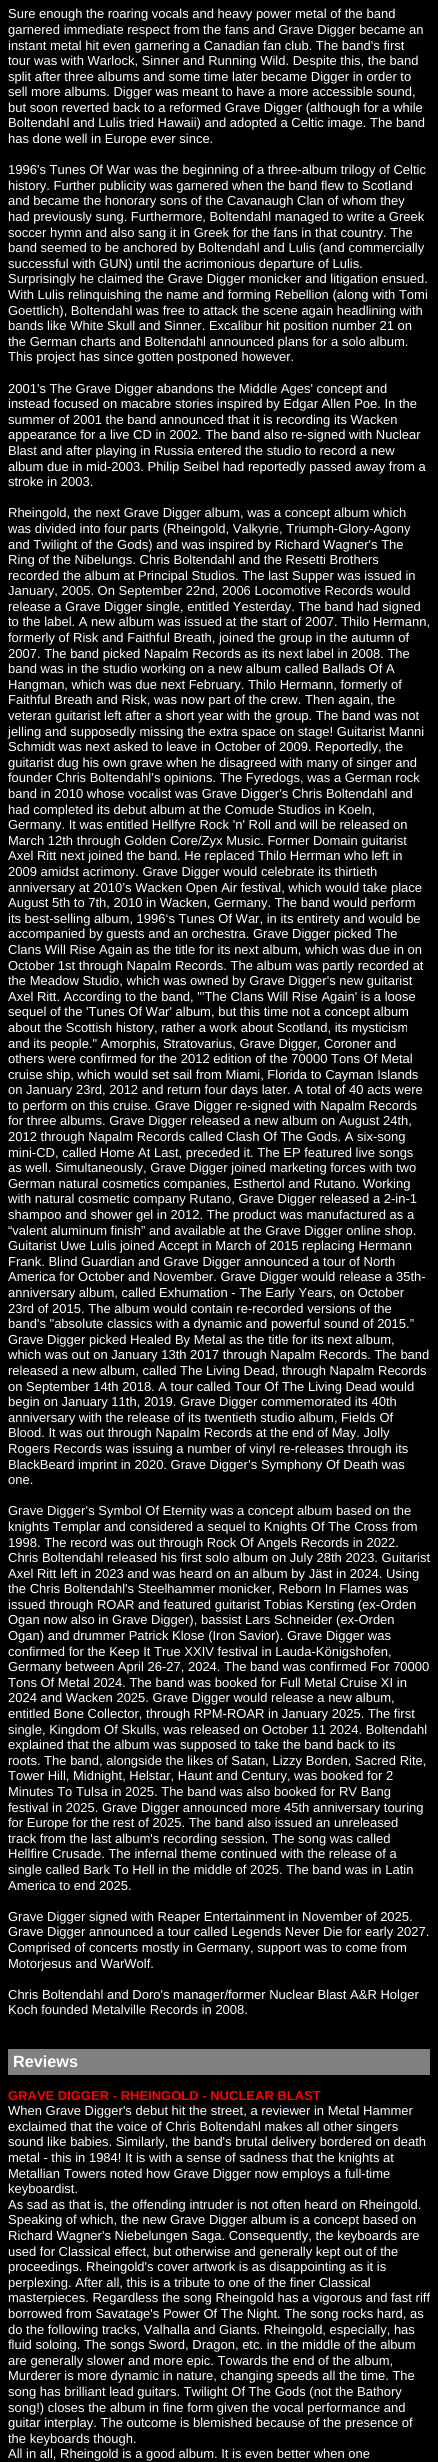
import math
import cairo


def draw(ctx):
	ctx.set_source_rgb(0, 0, 0)
	ctx.paint()
	ctx.select_font_face('Liberation Sans')
	ctx.set_font_size(13)
	ctx.set_source_rgb(1, 1, 1)
	for x, y, s in [
		(8, 18, 'Sure enough the roaring vocals and heavy power metal of the band'),
		(8, 34, 'garnered immediate respect from the fans and Grave Digger became an'),
		(8, 50, 'instant metal hit even garnering a Canadian fan club. The band\'s first'),
		(8, 65, 'tour was with Warlock, Sinner and Running Wild. Despite this, the band'),
		(8, 81, 'split after three albums and some time later became Digger in order to'),
		(8, 96, 'sell more albums. Digger was meant to have a more accessible sound,'),
		(8, 112, 'but soon reverted back to a reformed Grave Digger (although for a while'),
		(8, 127, 'Boltendahl and Lulis tried Hawaii) and adopted a Celtic image. The band'),
		(8, 143, 'has done well in Europe ever since.'),
		(8, 174, '1996\'s Tunes Of War was the beginning of a three-album trilogy of Celtic'),
		(8, 190, 'history. Further publicity was garnered when the band flew to Scotland'),
		(8, 205, 'and became the honorary sons of the Cavanaugh Clan of whom they'),
		(8, 221, 'had previously sung. Furthermore, Boltendahl managed to write a Greek'),
		(8, 237, 'soccer hymn and also sang it in Greek for the fans in that country. The'),
		(8, 252, 'band seemed to be anchored by Boltendahl and Lulis (and commercially'),
		(8, 268, 'successful with GUN) until the acrimonious departure of Lulis.'),
		(8, 283, 'Surprisingly he claimed the Grave Digger monicker and litigation ensued.'),
		(8, 299, 'With Lulis relinquishing the name and forming Rebellion (along with Tomi'),
		(8, 315, 'Goettlich), Boltendahl was free to attack the scene again headlining with'),
		(8, 330, 'bands like White Skull and Sinner. Excalibur hit position number 21 on'),
		(8, 346, 'the German charts and Boltendahl announced plans for a solo album.'),
		(8, 361, 'This project has since gotten postponed however.'),
		(8, 393, '2001\'s The Grave Digger abandons the Middle Ages\' concept and'),
		(8, 408, 'instead focused on macabre stories inspired by Edgar Allen Poe. In the'),
		(8, 424, 'summer of 2001 the band announced that it is recording its Wacken'),
		(8, 439, 'appearance for a live CD in 2002. The band also re-signed with Nuclear'),
		(8, 455, 'Blast and after playing in Russia entered the studio to record a new'),
		(8, 471, 'album due in mid-2003. Philip Seibel had reportedly passed away from a'),
		(8, 486, 'stroke in 2003.'),
		(8, 517, 'Rheingold, the next Grave Digger album, was a concept album which'),
		(8, 533, 'was divided into four parts (Rheingold, Valkyrie, Triumph-Glory-Agony'),
		(8, 549, 'and Twilight of the Gods) and was inspired by Richard Wagner\'s The'),
		(8, 564, 'Ring of the Nibelungs. Chris Boltendahl and the Resetti Brothers'),
		(8, 580, 'recorded the album at Principal Studios. The last Supper was issued in'),
		(8, 595, 'January, 2005. On September 22nd, 2006 Locomotive Records would'),
		(8, 611, 'release a Grave Digger single, entitled Yesterday. The band had signed'),
		(8, 626, 'to the label. A new album was issued at the start of 2007. Thilo Hermann,'),
		(8, 642, 'formerly of Risk and Faithful Breath, joined the group in the autumn of'),
		(8, 658, '2007. The band picked Napalm Records as its next label in 2008. The'),
		(8, 673, 'band was in the studio working on a new album called Ballads Of A'),
		(8, 689, 'Hangman, which was due next February. Thilo Hermann, formerly of'),
		(8, 704, 'Faithful Breath and Risk, was now part of the crew. Then again, the'),
		(8, 720, 'veteran guitarist left after a short year with the group. The band was not'),
		(8, 736, 'jelling and supposedly missing the extra space on stage! Guitarist Manni'),
		(8, 751, 'Schmidt was next asked to leave in October of 2009. Reportedly, the'),
		(8, 767, 'guitarist dug his own grave when he disagreed with many of singer and'),
		(8, 782, 'founder Chris Boltendahl’s opinions. The Fyredogs, was a German rock'),
		(8, 798, 'band in 2010 whose vocalist was Grave Digger’s Chris Boltendahl and'),
		(8, 814, 'had completed its debut album at the Comude Studios in Koeln,'),
		(8, 829, 'Germany. It was entitled Hellfyre Rock \'n\' Roll and will be released on'),
		(8, 845, 'March 12th through Golden Core/Zyx Music. Former Domain guitarist'),
		(8, 860, 'Axel Ritt next joined the band. He replaced Thilo Herrman who left in'),
		(8, 876, '2009 amidst acrimony. Grave Digger would celebrate its thirtieth'),
		(8, 892, 'anniversary at 2010’s Wacken Open Air festival, which would take place'),
		(8, 907, 'August 5th to 7th, 2010 in Wacken, Germany. The band would perform'),
		(8, 923, 'its best-selling album, 1996‘s Tunes Of War, in its entirety and would be'),
		(8, 938, 'accompanied by guests and an orchestra. Grave Digger picked The'),
		(8, 954, 'Clans Will Rise Again as the title for its next album, which was due in on'),
		(8, 970, 'October 1st through Napalm Records. The album was partly recorded at'),
		(8, 985, 'the Meadow Studio, which was owned by Grave Digger\'s new guitarist'),
		(8, 1001, 'Axel Ritt. According to the band, "\'The Clans Will Rise Again\' is a loose'),
		(8, 1016, 'sequel of the \'Tunes Of War\' album, but this time not a concept album'),
		(8, 1032, 'about the Scottish history, rather a work about Scotland, its mysticism'),
		(8, 1048, 'and its people." Amorphis, Stratovarius, Grave Digger, Coroner and'),
		(8, 1063, 'others were confirmed for the 2012 edition of the 70000 Tons Of Metal'),
		(8, 1079, 'cruise ship, which would set sail from Miami, Florida to Cayman Islands'),
		(8, 1094, 'on January 23rd, 2012 and return four days later. A total of 40 acts were'),
		(8, 1110, 'to perform on this cruise. Grave Digger re-signed with Napalm Records'),
		(8, 1125, 'for three albums. Grave Digger released a new album on August 24th,'),
		(8, 1141, '2012 through Napalm Records called Clash Of The Gods. A six-song'),
		(8, 1157, 'mini-CD, called Home At Last, preceded it. The EP featured live songs'),
		(8, 1172, 'as well. Simultaneously, Grave Digger joined marketing forces with two'),
		(8, 1188, 'German natural cosmetics companies, Esthertol and Rutano. Working'),
		(8, 1203, 'with natural cosmetic company Rutano, Grave Digger released a 2-in-1'),
		(8, 1219, 'shampoo and shower gel in 2012. The product was manufactured as a'),
		(8, 1235, '“valent aluminum finish” and available at the Grave Digger online shop.'),
		(8, 1250, 'Guitarist Uwe Lulis joined Accept in March of 2015 replacing Hermann'),
		(8, 1266, 'Frank. Blind Guardian and Grave Digger announced a tour of North'),
		(8, 1281, 'America for October and November. Grave Digger would release a 35th-'),
		(8, 1297, 'anniversary album, called Exhumation - The Early Years, on October'),
		(8, 1313, '23rd of 2015. The album would contain re-recorded versions of the'),
		(8, 1328, 'band\'s "absolute classics with a dynamic and powerful sound of 2015.”'),
		(8, 1344, 'Grave Digger picked Healed By Metal as the title for its next album,'),
		(8, 1359, 'which was out on January 13th 2017 through Napalm Records. The band'),
		(8, 1375, 'released a new album, called The Living Dead, through Napalm Records'),
		(8, 1391, 'on September 14th 2018. A tour called Tour Of The Living Dead would'),
		(8, 1406, 'begin on January 11th, 2019. Grave Digger commemorated its 40th'),
		(8, 1422, 'anniversary with the release of its twentieth studio album, Fields Of'),
		(8, 1437, 'Blood. It was out through Napalm Records at the end of May. Jolly'),
		(8, 1453, 'Rogers Records was issuing a number of vinyl re-releases through its'),
		(8, 1469, 'BlackBeard imprint in 2020. Grave Digger’s Symphony Of Death was'),
		(8, 1484, 'one.'),
		(8, 1515, 'Grave Digger’s Symbol Of Eternity was a concept album based on the'),
		(8, 1531, 'knights Templar and considered a sequel to Knights Of The Cross from'),
		(8, 1547, '1998. The record was out through Rock Of Angels Records in 2022.'),
		(8, 1562, 'Chris Boltendahl released his first solo album on July 28th 2023. Guitarist'),
		(8, 1578, 'Axel Ritt left in 2023 and was heard on an album by Jäst in 2024. Using'),
		(8, 1593, 'the Chris Boltendahl\'s Steelhammer monicker, Reborn In Flames was'),
		(8, 1609, 'issued through ROAR and featured guitarist Tobias Kersting (ex-Orden'),
		(8, 1624, 'Ogan now also in Grave Digger), bassist Lars Schneider (ex-Orden'),
		(8, 1640, 'Ogan) and drummer Patrick Klose (Iron Savior). Grave Digger was'),
		(8, 1656, 'confirmed for the Keep It True XXIV festival in Lauda-Königshofen,'),
		(8, 1671, 'Germany between April 26-27, 2024. The band was confirmed For 70000'),
		(8, 1687, 'Tons Of Metal 2024. The band was booked for Full Metal Cruise XI in'),
		(8, 1702, '2024 and Wacken 2025. Grave Digger would release a new album,'),
		(8, 1718, 'entitled Bone Collector, through RPM-ROAR in January 2025. The first'),
		(8, 1734, 'single, Kingdom Of Skulls, was released on October 11 2024. Boltendahl'),
		(8, 1749, 'explained that the album was supposed to take the band back to its'),
		(8, 1765, 'roots. The band, alongside the likes of Satan, Lizzy Borden, Sacred Rite,'),
		(8, 1780, 'Tower Hill, Midnight, Helstar, Haunt and Century, was booked for 2'),
		(8, 1796, 'Minutes To Tulsa in 2025. The band was also booked for RV Bang'),
		(8, 1812, 'festival in 2025. Grave Digger announced more 45th anniversary touring'),
		(8, 1827, 'for Europe for the rest of 2025. The band also issued an unreleased'),
		(8, 1843, 'track from the last album\'s recording session. The song was called'),
		(8, 1858, 'Hellfire Crusade. The infernal theme continued with the release of a'),
		(8, 1874, 'single called Bark To Hell in the middle of 2025. The band was in Latin'),
		(8, 1890, 'America to end 2025.'),
		(8, 1921, 'Grave Digger signed with Reaper Entertainment in November of 2025.'),
		(8, 1936, 'Grave Digger announced a tour called Legends Never Die for early 2027.'),
		(8, 1952, 'Comprised of concerts mostly in Germany, support was to come from'),
		(8, 1968, 'Motorjesus and WarWolf.'),
		(8, 1999, 'Chris Boltendahl and Doro\'s manager/former Nuclear Blast A&R Holger'),
		(8, 2014, 'Koch founded Metalville Records in 2008.'),
	]:
		ctx.move_to(x, y)
		ctx.show_text(s)
	ctx.set_source_rgb(0.502, 0.502, 0.502)
	ctx.rectangle(8, 2049, 422, 26)
	ctx.fill()
	ctx.select_font_face('Liberation Sans', cairo.FONT_SLANT_NORMAL, cairo.FONT_WEIGHT_BOLD)
	ctx.set_font_size(16.25)
	ctx.set_source_rgb(1, 1, 1)
	ctx.move_to(13, 2067)
	ctx.show_text('Reviews')
	ctx.set_font_size(13)
	ctx.set_source_rgb(1, 0, 0)
	ctx.move_to(8, 2100)
	ctx.show_text('GRAVE DIGGER - RHEINGOLD - NUCLEAR BLAST')
	ctx.select_font_face('Liberation Sans')
	ctx.set_source_rgb(1, 1, 1)
	for x, y, s in [
		(8, 2115, 'When Grave Digger\'s debut hit the street, a reviewer in Metal Hammer'),
		(8, 2131, 'exclaimed that the voice of Chris Boltendahl makes all other singers'),
		(8, 2146, 'sound like babies. Similarly, the band\'s brutal delivery bordered on death'),
		(8, 2162, 'metal - this in 1984! It is with a sense of sadness that the knights at'),
		(8, 2178, 'Metallian Towers noted how Grave Digger now employs a full-time'),
		(8, 2193, 'keyboardist.'),
		(8, 2209, 'As sad as that is, the offending intruder is not often heard on Rheingold.'),
		(8, 2224, 'Speaking of which, the new Grave Digger album is a concept based on'),
		(8, 2240, 'Richard Wagner\'s Niebelungen Saga. Consequently, the keyboards are'),
		(8, 2256, 'used for Classical effect, but otherwise and generally kept out of the'),
		(8, 2271, 'proceedings. Rheingold\'s cover artwork is as disappointing as it is'),
		(8, 2287, 'perplexing. After all, this is a tribute to one of the finer Classical'),
		(8, 2302, 'masterpieces. Regardless the song Rheingold has a vigorous and fast riff'),
		(8, 2318, 'borrowed from Savatage\'s Power Of The Night. The song rocks hard, as'),
		(8, 2334, 'do the following tracks, Valhalla and Giants. Rheingold, especially, has'),
		(8, 2349, 'fluid soloing. The songs Sword, Dragon, etc. in the middle of the album'),
		(8, 2365, 'are generally slower and more epic. Towards the end of the album,'),
		(8, 2380, 'Murderer is more dynamic in nature, changing speeds all the time. The'),
		(8, 2396, 'song has brilliant lead guitars. Twilight Of The Gods (not the Bathory'),
		(8, 2412, 'song!) closes the album in fine form given the vocal performance and'),
		(8, 2427, 'guitar interplay. The outcome is blemished because of the presence of'),
		(8, 2443, 'the keyboards though.'),
		(8, 2458, 'All in all, Rheingold is a good album. It is even better when one'),
	]:
		ctx.move_to(x, y)
		ctx.show_text(s)


surface = cairo.ImageSurface(cairo.FORMAT_RGB24, 438, 2462)
ctx = cairo.Context(surface)
options = cairo.FontOptions()
options.set_hint_metrics(cairo.HINT_METRICS_OFF)
options.set_hint_style(cairo.HINT_STYLE_NONE)
ctx.set_font_options(options)
ctx.set_miter_limit(4)
draw(ctx)
surface.write_to_png('image.png')
